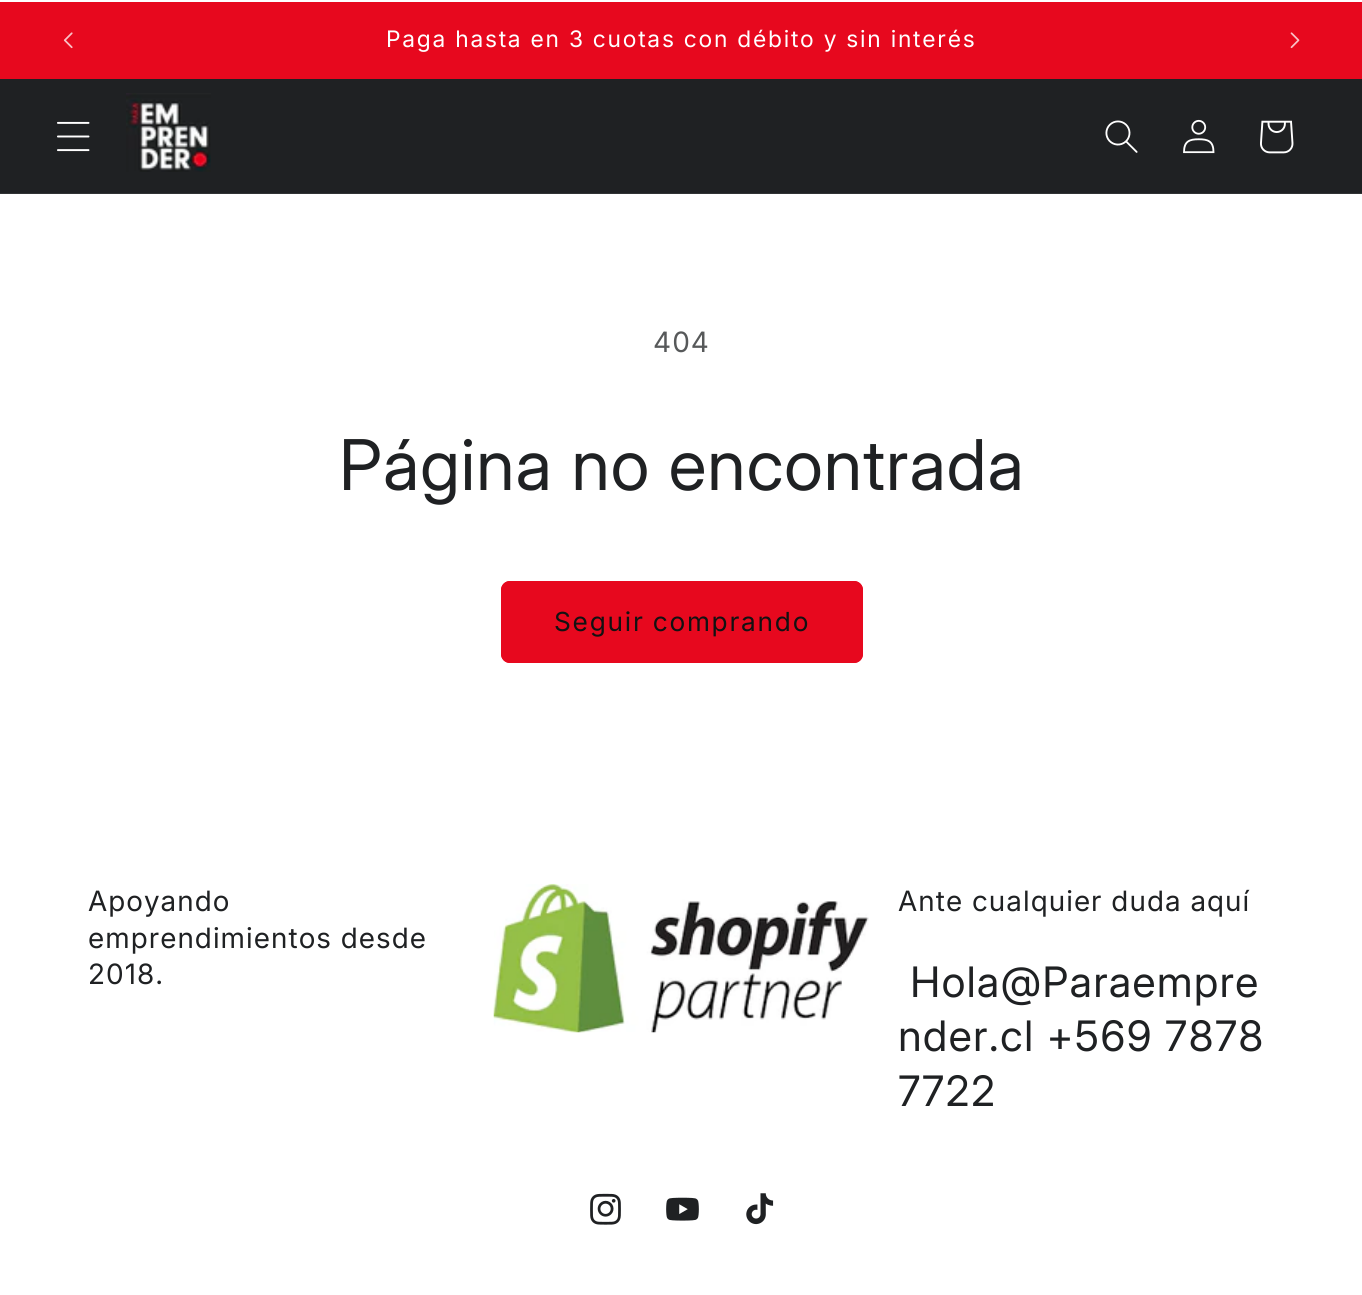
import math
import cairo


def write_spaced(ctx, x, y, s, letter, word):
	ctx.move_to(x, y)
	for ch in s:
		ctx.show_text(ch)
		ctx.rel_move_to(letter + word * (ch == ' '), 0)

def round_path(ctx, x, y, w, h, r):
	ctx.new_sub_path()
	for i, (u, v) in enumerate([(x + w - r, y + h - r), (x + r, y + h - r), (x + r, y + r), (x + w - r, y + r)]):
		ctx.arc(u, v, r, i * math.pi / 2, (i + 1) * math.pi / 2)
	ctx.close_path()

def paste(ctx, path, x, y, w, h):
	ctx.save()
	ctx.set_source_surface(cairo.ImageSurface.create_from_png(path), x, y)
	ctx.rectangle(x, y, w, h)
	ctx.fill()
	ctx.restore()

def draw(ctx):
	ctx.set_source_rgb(1, 1, 1)
	ctx.paint()
	ctx.set_source_rgb(0.906, 0.035, 0.118)
	ctx.rectangle(0, 2, 1362, 77)
	ctx.fill()
	paste(ctx, 'media/1.png', 63, 32, 10, 17)
	ctx.select_font_face('Inter')
	ctx.set_font_size(22.75)
	ctx.set_source_rgb(1, 1, 1)
	write_spaced(ctx, 386, 47, 'Paga hasta en 3 cuotas con débito y sin interés', 1.75, 0)
	paste(ctx, 'media/2.png', 1290, 32, 10, 17)
	ctx.set_source_rgb(0.122, 0.129, 0.137)
	ctx.rectangle(0, 79, 1362, 114)
	ctx.fill()
	ctx.set_source_rgb(0.192, 0.2, 0.208)
	ctx.rectangle(0, 193, 1362, 1)
	ctx.fill()
	paste(ctx, 'media/3.png', 57, 121, 33, 31)
	paste(ctx, 'media/4.png', 126, 93, 85, 79)
	paste(ctx, 'media/5.png', 1105, 120, 33, 33)
	paste(ctx, 'media/6.png', 1183, 119, 32, 35)
	paste(ctx, 'media/7.png', 1260, 120, 34, 34)
	ctx.set_font_size(28)
	ctx.set_source_rgb(0.341, 0.349, 0.353)
	write_spaced(ctx, 653, 352, '404', 1.05, 0)
	ctx.select_font_face('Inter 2')
	ctx.set_font_size(70)
	ctx.set_source_rgb(0.122, 0.129, 0.137)
	write_spaced(ctx, 339, 490, 'Página no encontrada', 1.05, 0)
	ctx.set_source_rgb(0.906, 0.035, 0.118)
	round_path(ctx, 501, 581, 362, 82, 9)
	ctx.fill()
	round_path(ctx, 502, 582, 360, 80, 8)
	ctx.stroke()
	ctx.select_font_face('Inter')
	ctx.set_font_size(26.25)
	ctx.set_source_rgb(0.071, 0.071, 0.071)
	write_spaced(ctx, 554, 631, 'Seguir comprando', 1.75, -1)
	ctx.select_font_face('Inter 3')
	ctx.set_font_size(28)
	ctx.set_source_rgb(0.122, 0.129, 0.137)
	for x, y, s in [
		(88, 911, 'Apoyando'),
		(88, 948, 'emprendimientos desde'),
		(88, 984, '2018.'),
	]:
		write_spaced(ctx, x, y, s, 1.05, 0)
	paste(ctx, 'media/8.png', 493, 883, 376, 150)
	write_spaced(ctx, 898, 911, 'Ante cualquier duda aquí', 1.05, 0)
	ctx.select_font_face('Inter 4')
	ctx.set_font_size(42)
	for x, y, s in [
		(910, 997, 'Hola@Paraempre'),
		(898, 1051, 'nder.cl +569 7878'),
		(898, 1106, '7722'),
	]:
		write_spaced(ctx, x, y, s, 1.05, 0)
	paste(ctx, 'media/9.png', 590, 1193, 31, 32)
	paste(ctx, 'media/10.png', 666, 1197, 33, 24)
	paste(ctx, 'media/11.png', 746, 1193, 28, 32)


surface = cairo.ImageSurface(cairo.FORMAT_RGB24, 1362, 1295)
ctx = cairo.Context(surface)
options = cairo.FontOptions()
options.set_hint_metrics(cairo.HINT_METRICS_OFF)
options.set_hint_style(cairo.HINT_STYLE_NONE)
ctx.set_font_options(options)
ctx.set_miter_limit(4)
draw(ctx)
surface.write_to_png('image.png')
